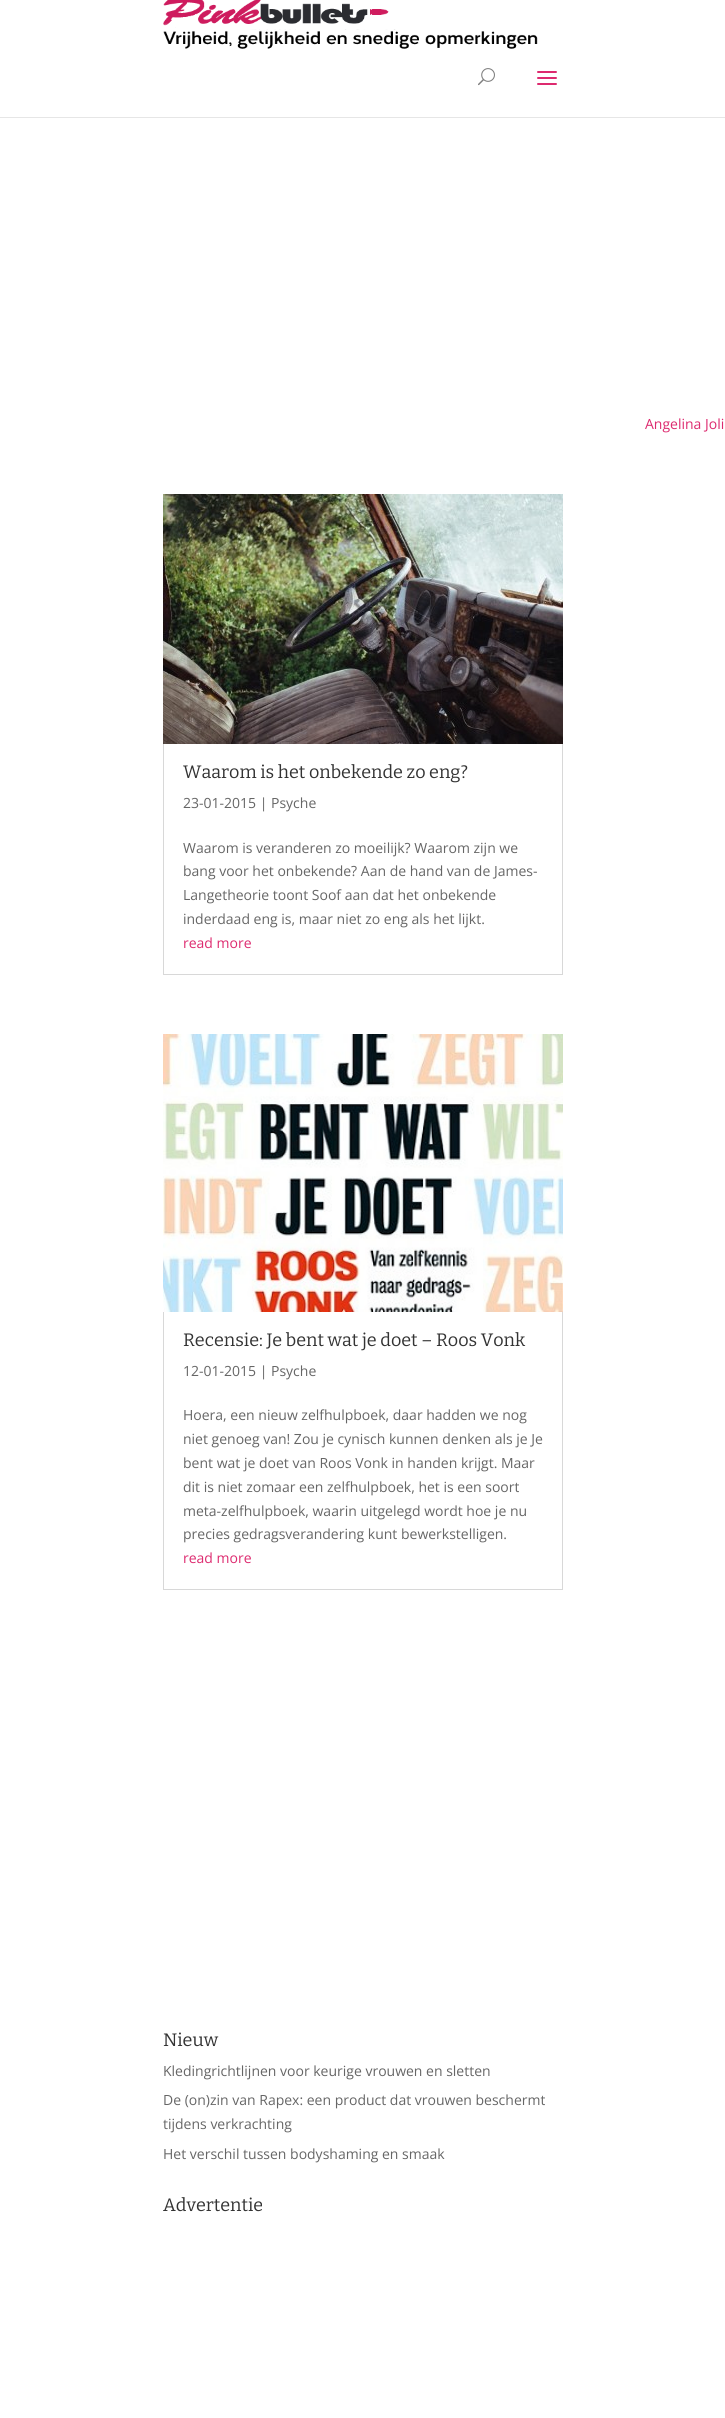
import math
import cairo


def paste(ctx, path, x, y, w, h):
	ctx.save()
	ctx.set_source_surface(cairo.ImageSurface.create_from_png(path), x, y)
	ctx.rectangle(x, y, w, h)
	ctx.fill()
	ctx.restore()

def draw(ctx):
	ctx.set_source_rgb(1, 1, 1)
	ctx.paint()
	ctx.set_source_rgb(0.902, 0.902, 0.902)
	ctx.rectangle(0, 117, 725, 1)
	ctx.fill()
	paste(ctx, 'media/1.png', 163, 0, 375, 49)
	paste(ctx, 'media/2.png', 478, 68, 17, 18)
	paste(ctx, 'media/3.png', 537, 71, 20, 14)
	ctx.select_font_face('Open Sans')
	ctx.set_font_size(14)
	ctx.set_source_rgb(0.867, 0.165, 0.435)
	ctx.move_to(645, 429)
	ctx.show_text('Angelina Joli')
	ctx.rectangle(163.5, 494.5, 399, 480)
	ctx.set_source_rgb(0.847, 0.847, 0.847)
	ctx.set_line_width(1)
	ctx.stroke()
	paste(ctx, 'media/4.png', 163, 494, 400, 250)
	ctx.select_font_face('Bitter')
	ctx.set_font_size(18)
	ctx.set_source_rgb(0.2, 0.2, 0.2)
	ctx.move_to(183, 778)
	ctx.show_text('Waarom is het onbekende zo eng?')
	ctx.select_font_face('Open Sans')
	ctx.set_font_size(14)
	ctx.set_source_rgb(0.4, 0.4, 0.4)
	for x, y, s in [
		(183, 808, '23-01-2015 | Psyche'),
		(183, 853, 'Waarom is veranderen zo moeilijk? Waarom zijn we'),
		(183, 876, 'bang voor het onbekende? Aan de hand van de James-'),
		(183, 900, 'Langetheorie toont Soof aan dat het onbekende'),
		(183, 924, 'inderdaad eng is, maar niet zo eng als het lijkt.'),
	]:
		ctx.move_to(x, y)
		ctx.show_text(s)
	ctx.set_source_rgb(0.867, 0.165, 0.435)
	ctx.move_to(183, 948)
	ctx.show_text('read more')
	ctx.rectangle(163.5, 1034.5, 399, 555)
	ctx.set_source_rgb(0.847, 0.847, 0.847)
	ctx.stroke()
	paste(ctx, 'media/5.png', 163, 1034, 400, 278)
	ctx.select_font_face('Bitter')
	ctx.set_font_size(18)
	ctx.set_source_rgb(0.2, 0.2, 0.2)
	ctx.move_to(183, 1346)
	ctx.show_text('Recensie: Je bent wat je doet – Roos Vonk')
	ctx.select_font_face('Open Sans')
	ctx.set_font_size(14)
	ctx.set_source_rgb(0.4, 0.4, 0.4)
	for x, y, s in [
		(183, 1376, '12-01-2015 | Psyche'),
		(183, 1420, 'Hoera, een nieuw zelfhulpboek, daar hadden we nog'),
		(183, 1444, 'niet genoeg van! Zou je cynisch kunnen denken als je Je'),
		(183, 1468, 'bent wat je doet van Roos Vonk in handen krijgt. Maar'),
		(183, 1492, 'dit is niet zomaar een zelfhulpboek, het is een soort'),
		(183, 1516, 'meta-zelfhulpboek, waarin uitgelegd wordt hoe je nu'),
		(183, 1539, 'precies gedragsverandering kunt bewerkstelligen.'),
	]:
		ctx.move_to(x, y)
		ctx.show_text(s)
	ctx.set_source_rgb(0.867, 0.165, 0.435)
	ctx.move_to(183, 1563)
	ctx.show_text('read more')
	ctx.select_font_face('Bitter')
	ctx.set_font_size(18)
	ctx.set_source_rgb(0.2, 0.2, 0.2)
	ctx.move_to(163, 2046)
	ctx.show_text('Nieuw')
	ctx.select_font_face('Open Sans')
	ctx.set_font_size(14)
	ctx.set_source_rgb(0.4, 0.4, 0.4)
	for x, y, s in [
		(163, 2076, 'Kledingrichtlijnen voor keurige vrouwen en sletten'),
		(163, 2105, 'De (on)zin van Rapex: een product dat vrouwen beschermt'),
		(163, 2129, 'tijdens verkrachting'),
		(163, 2159, 'Het verschil tussen bodyshaming en smaak'),
	]:
		ctx.move_to(x, y)
		ctx.show_text(s)
	ctx.select_font_face('Bitter')
	ctx.set_font_size(18)
	ctx.set_source_rgb(0.2, 0.2, 0.2)
	ctx.move_to(163, 2211)
	ctx.show_text('Advertentie')


surface = cairo.ImageSurface(cairo.FORMAT_RGB24, 725, 2418)
ctx = cairo.Context(surface)
options = cairo.FontOptions()
options.set_hint_metrics(cairo.HINT_METRICS_OFF)
options.set_hint_style(cairo.HINT_STYLE_NONE)
ctx.set_font_options(options)
ctx.set_miter_limit(4)
draw(ctx)
surface.write_to_png('image.png')
